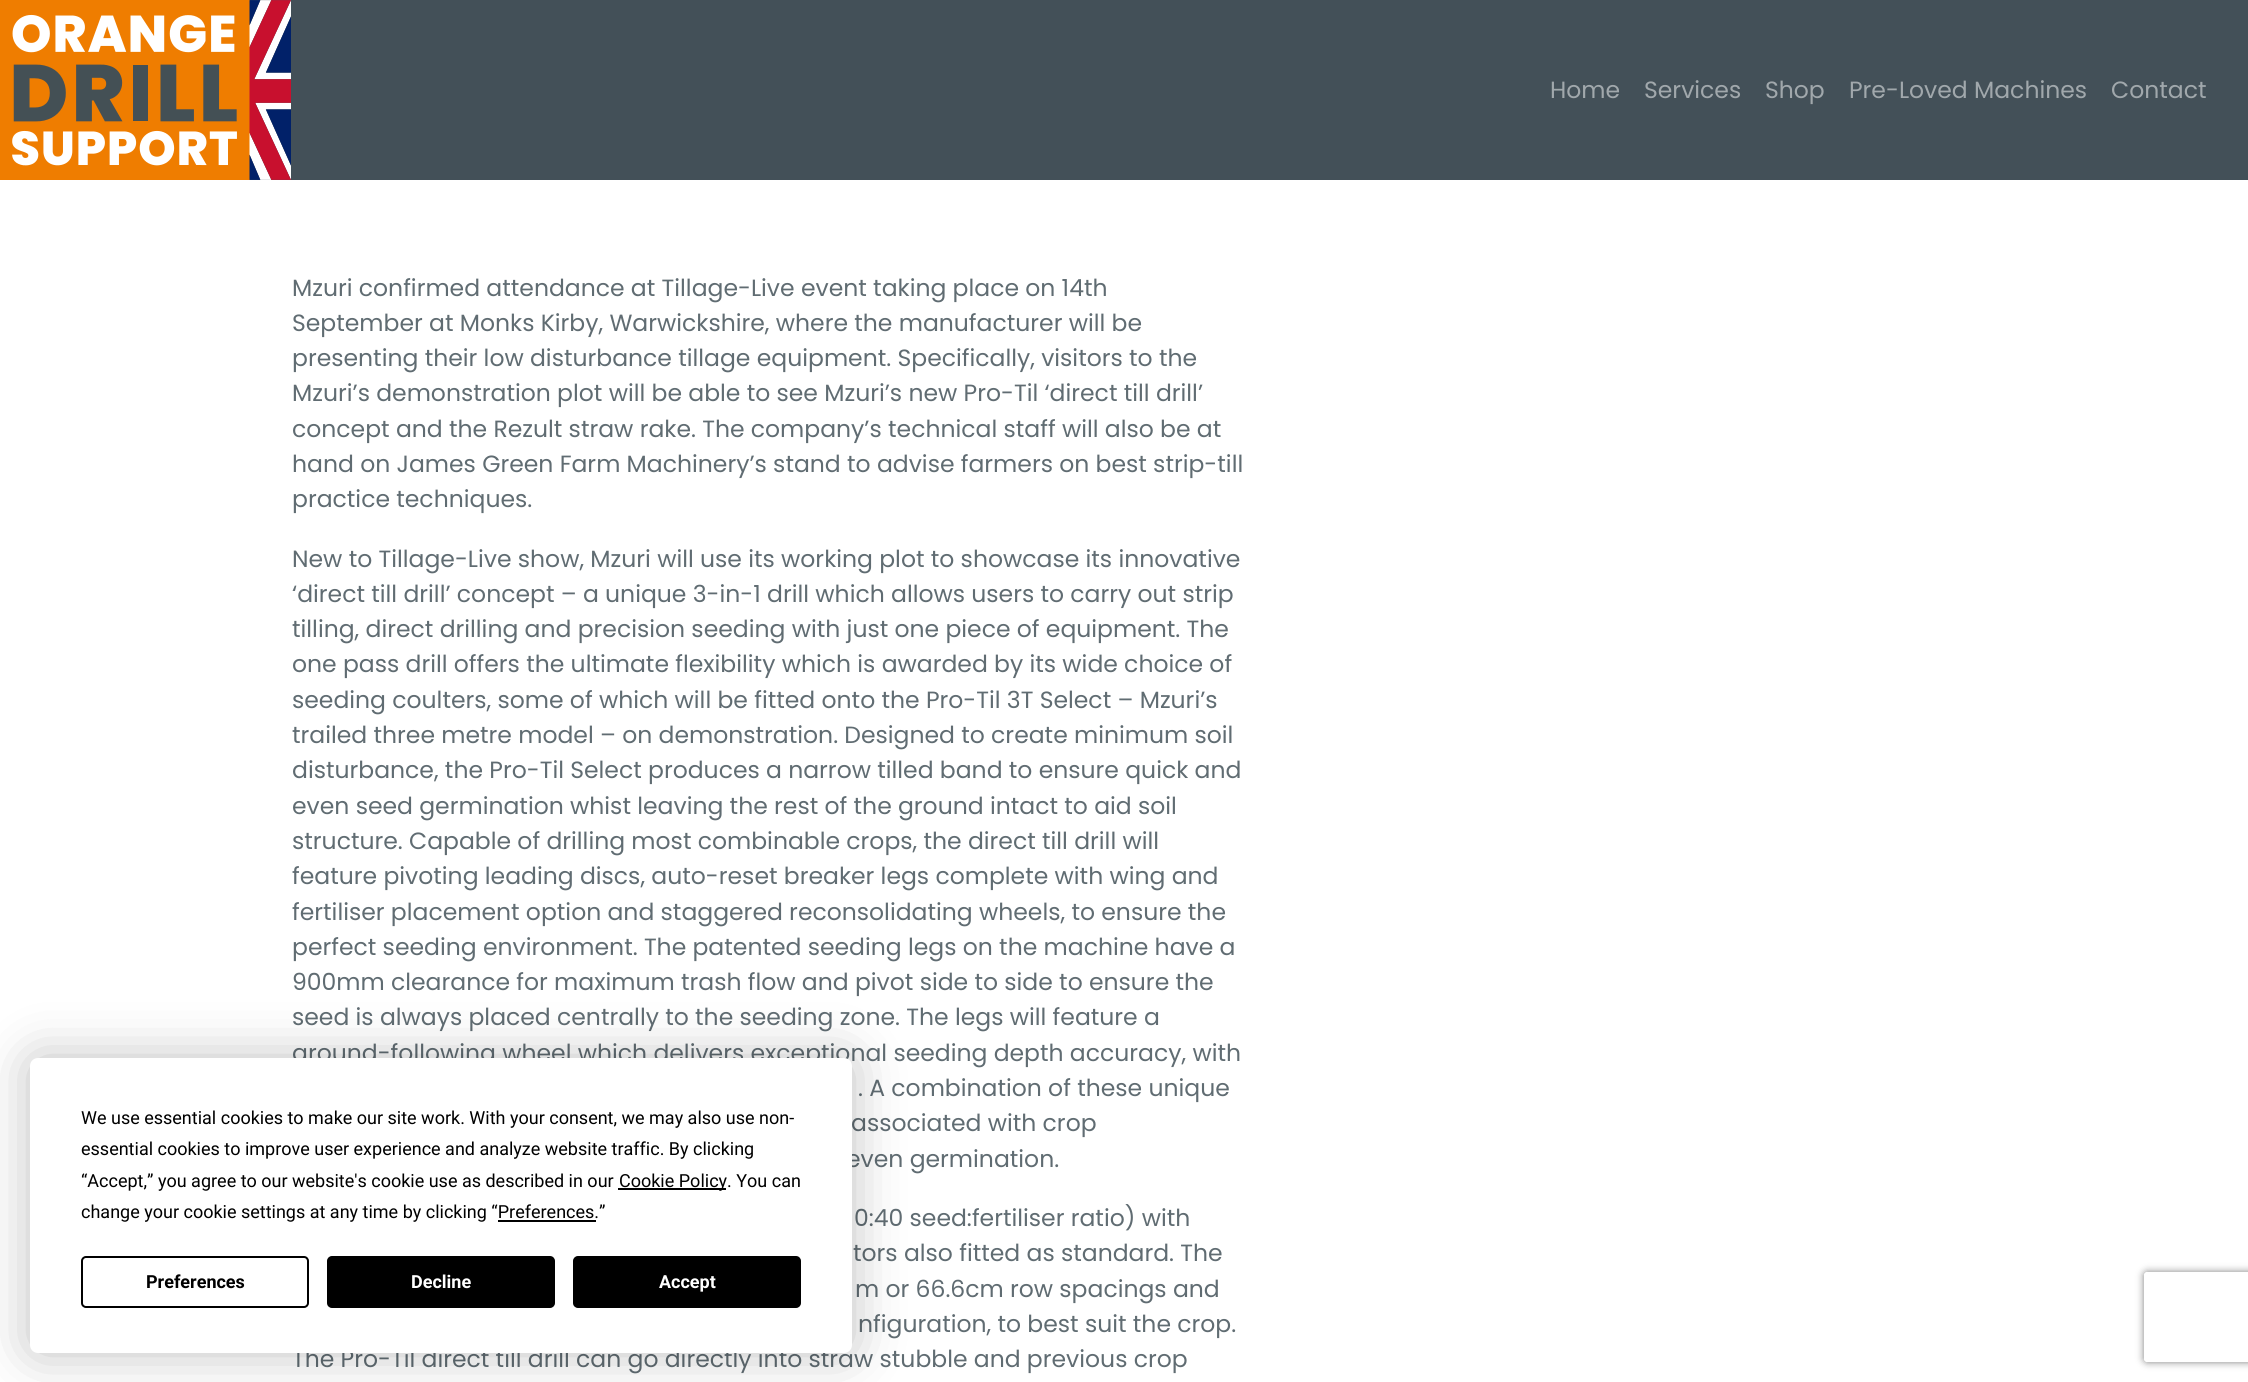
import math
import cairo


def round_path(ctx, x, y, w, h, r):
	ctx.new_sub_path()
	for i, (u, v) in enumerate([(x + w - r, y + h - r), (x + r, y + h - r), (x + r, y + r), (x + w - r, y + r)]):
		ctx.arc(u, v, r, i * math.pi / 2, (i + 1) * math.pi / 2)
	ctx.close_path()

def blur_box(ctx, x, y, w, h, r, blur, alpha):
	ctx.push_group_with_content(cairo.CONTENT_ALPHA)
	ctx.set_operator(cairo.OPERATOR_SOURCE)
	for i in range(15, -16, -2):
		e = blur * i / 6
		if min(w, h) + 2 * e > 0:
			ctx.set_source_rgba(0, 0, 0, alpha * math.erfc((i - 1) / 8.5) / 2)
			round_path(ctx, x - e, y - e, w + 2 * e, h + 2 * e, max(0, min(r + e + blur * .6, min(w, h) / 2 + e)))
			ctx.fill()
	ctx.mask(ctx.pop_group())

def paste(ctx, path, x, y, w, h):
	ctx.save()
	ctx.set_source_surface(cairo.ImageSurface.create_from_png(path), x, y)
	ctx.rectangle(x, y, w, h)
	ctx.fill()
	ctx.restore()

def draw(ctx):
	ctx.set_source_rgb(1, 1, 1)
	ctx.paint()
	ctx.set_source_rgb(0.263, 0.314, 0.345)
	ctx.rectangle(250, 0, 1998, 180)
	ctx.fill()
	paste(ctx, 'media/1.png', 0, 0, 291, 180)
	ctx.select_font_face('Poppins')
	ctx.set_font_size(23.5)
	ctx.set_source_rgb(0.631, 0.659, 0.675)
	for x, y, s in [
		(1550, 98, 'Home'),
		(1644, 98, 'Services'),
		(1765, 98, 'Shop'),
		(1849, 98, 'Pre-Loved Machines'),
		(2111, 98, 'Contact'),
	]:
		ctx.move_to(x, y)
		ctx.show_text(s)
	ctx.set_source_rgb(0.376, 0.424, 0.447)
	for x, y, s in [
		(292, 296, 'Mzuri confirmed attendance at Tillage-Live event taking place on 14th'),
		(292, 331, 'September at Monks Kirby, Warwickshire, where the manufacturer will be'),
		(292, 366, 'presenting their low disturbance tillage equipment. Specifically, visitors to the'),
		(292, 401, 'Mzuri’s demonstration plot will be able to see Mzuri’s new Pro-Til ‘direct till drill’'),
		(292, 437, 'concept and the Rezult straw rake. The company’s technical staff will also be at'),
		(292, 472, 'hand on James Green Farm Machinery’s stand to advise farmers on best strip-till'),
		(292, 507, 'practice techniques.'),
		(292, 567, 'New to Tillage-Live show, Mzuri will use its working plot to showcase its innovative'),
		(292, 602, '‘direct till drill’ concept – a unique 3-in-1 drill which allows users to carry out strip'),
		(292, 637, 'tilling, direct drilling and precision seeding with just one piece of equipment. The'),
		(292, 672, 'one pass drill offers the ultimate flexibility which is awarded by its wide choice of'),
		(292, 708, 'seeding coulters, some of which will be fitted onto the Pro-Til 3T Select – Mzuri’s'),
		(292, 743, 'trailed three metre model – on demonstration. Designed to create minimum soil'),
		(292, 778, 'disturbance, the Pro-Til Select produces a narrow tilled band to ensure quick and'),
		(292, 814, 'even seed germination whist leaving the rest of the ground intact to aid soil'),
		(292, 849, 'structure. Capable of drilling most combinable crops, the direct till drill will'),
		(292, 884, 'feature pivoting leading discs, auto-reset breaker legs complete with wing and'),
		(292, 920, 'fertiliser placement option and staggered reconsolidating wheels, to ensure the'),
		(292, 955, 'perfect seeding environment. The patented seeding legs on the machine have a'),
		(292, 990, '900mm clearance for maximum trash flow and pivot side to side to ensure the'),
		(292, 1025, 'seed is always placed centrally to the seeding zone. The legs will feature a'),
		(292, 1061, 'ground-following wheel which delivers exceptional seeding depth accuracy, with'),
		(858, 1096, '. A combination of these unique'),
		(851, 1131, 'associated with crop'),
		(846, 1167, 'even germination.'),
		(854, 1226, '0:40 seed:fertiliser ratio) with'),
		(853, 1261, 'tors also fitted as standard. The'),
		(855, 1297, 'm or 66.6cm row spacings and'),
		(858, 1332, 'nfiguration, to best suit the crop.'),
		(292, 1367, 'The Pro-Til direct till drill can go directly into straw stubble and previous crop'),
	]:
		ctx.move_to(x, y)
		ctx.show_text(s)
	ctx.set_source_rgb(0, 0, 0)
	blur_box(ctx, 30, 1058, 822, 295, 8, 26, 0.25)
	ctx.set_source_rgb(1, 1, 1)
	round_path(ctx, 30, 1058, 822, 295, 8)
	ctx.fill()
	ctx.select_font_face('Roboto')
	ctx.set_font_size(18)
	ctx.set_source_rgb(0, 0, 0)
	for x, y, s in [
		(81, 1124, 'We use essential cookies to make our site work. With your consent, we may also use non-'),
		(81, 1155, 'essential cookies to improve user experience and analyze website traffic. By clicking'),
		(81, 1187, '“Accept,” you agree to our website\'s cookie use as described in our'),
	]:
		ctx.move_to(x, y)
		ctx.show_text(s)
	ctx.rectangle(618, 1188, 108, 2)
	ctx.fill()
	ctx.move_to(619, 1187)
	ctx.show_text('Cookie Policy. You can')
	ctx.move_to(81, 1218)
	ctx.show_text('change your cookie settings at any time by clicking “Preferences.”')
	ctx.rectangle(498, 1220, 98, 2)
	ctx.fill()
	round_path(ctx, 82, 1257, 226, 50, 4)
	ctx.stroke()
	ctx.select_font_face('Roboto', cairo.FONT_SLANT_NORMAL, cairo.FONT_WEIGHT_BOLD)
	ctx.move_to(146, 1288)
	ctx.show_text('Preferences')
	round_path(ctx, 328, 1257, 226, 50, 4)
	ctx.fill_preserve()
	ctx.stroke()
	ctx.set_source_rgb(1, 1, 1)
	ctx.move_to(411, 1288)
	ctx.show_text('Decline')
	ctx.set_source_rgb(0, 0, 0)
	round_path(ctx, 574, 1257, 226, 50, 4)
	ctx.fill_preserve()
	ctx.stroke()
	ctx.set_source_rgb(1, 1, 1)
	ctx.move_to(659, 1288)
	ctx.show_text('Accept')
	ctx.save()
	ctx.set_fill_rule(cairo.FILL_RULE_EVEN_ODD)
	ctx.new_path()
	ctx.move_to(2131, 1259)
	ctx.line_to(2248, 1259)
	ctx.line_to(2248, 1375)
	ctx.line_to(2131, 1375)
	ctx.close_path()
	ctx.move_to(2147, 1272)
	ctx.line_to(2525, 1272)
	ctx.curve_to(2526.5, 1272, 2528, 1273.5, 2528, 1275)
	ctx.line_to(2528, 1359)
	ctx.curve_to(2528, 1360.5, 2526.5, 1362, 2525, 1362)
	ctx.line_to(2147, 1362)
	ctx.curve_to(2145.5, 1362, 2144, 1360.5, 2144, 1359)
	ctx.line_to(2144, 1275)
	ctx.curve_to(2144, 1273.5, 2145.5, 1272, 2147, 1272)
	ctx.close_path()
	ctx.clip()
	ctx.set_source_rgb(0.502, 0.502, 0.502)
	blur_box(ctx, 2144, 1272, 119, 90, 3, 4, 1)
	ctx.restore()


surface = cairo.ImageSurface(cairo.FORMAT_RGB24, 2248, 1382)
ctx = cairo.Context(surface)
options = cairo.FontOptions()
options.set_hint_metrics(cairo.HINT_METRICS_OFF)
options.set_hint_style(cairo.HINT_STYLE_NONE)
ctx.set_font_options(options)
ctx.set_miter_limit(4)
draw(ctx)
surface.write_to_png('image.png')
